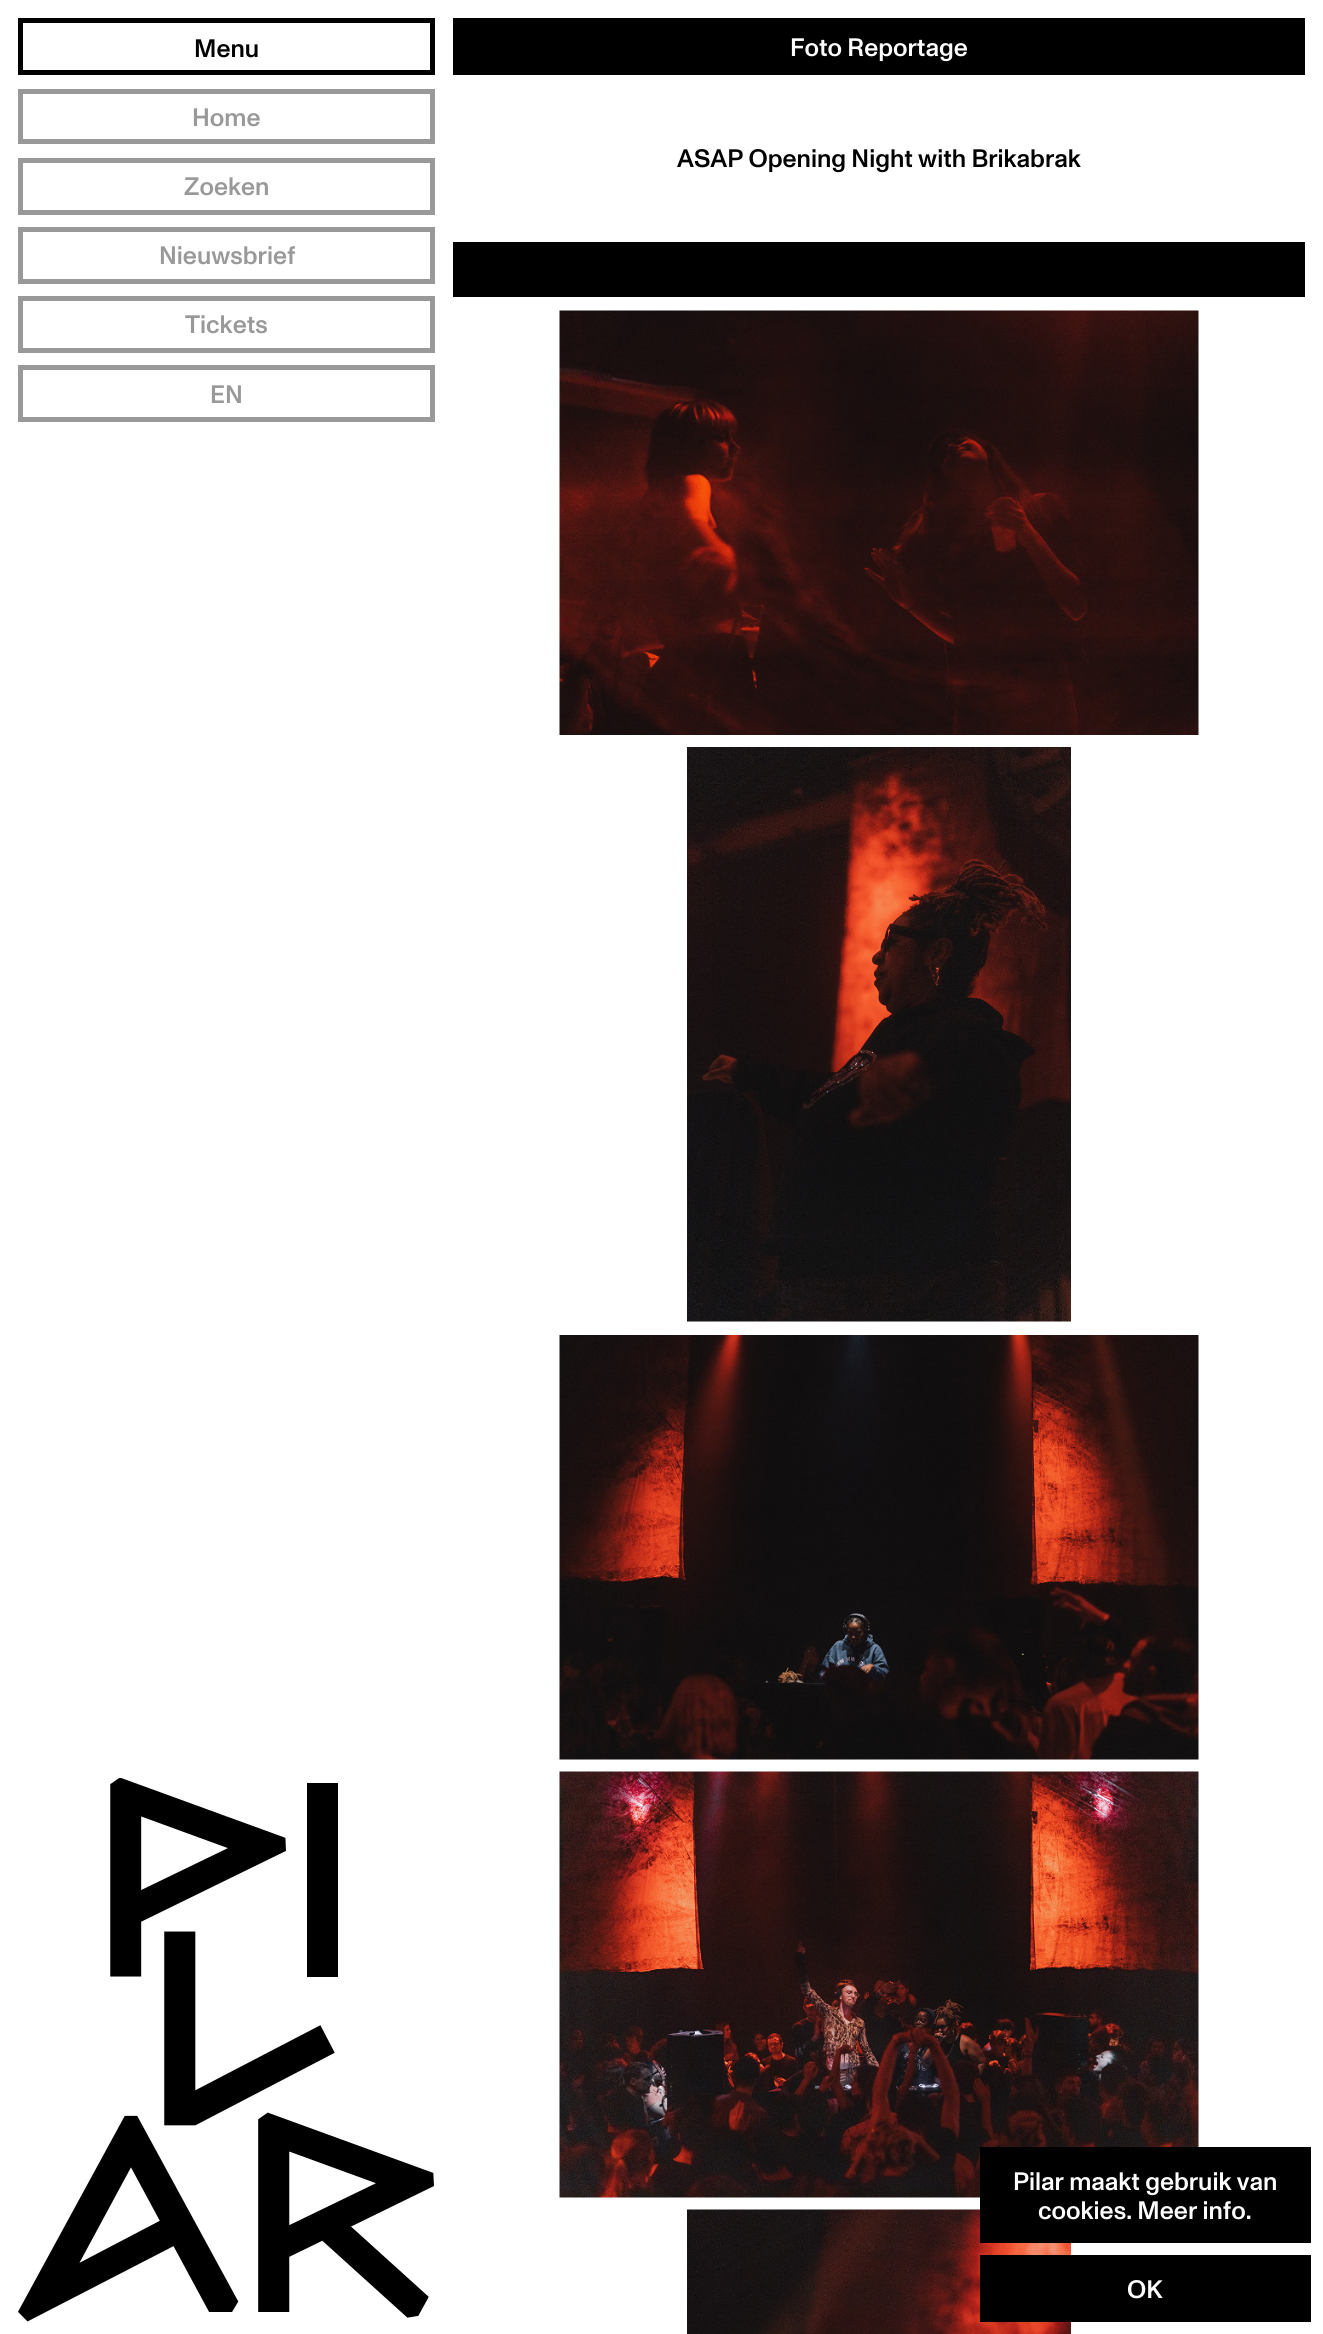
import math
import cairo


def paste(ctx, path, x, y, w, h):
	ctx.save()
	ctx.set_source_surface(cairo.ImageSurface.create_from_png(path), x, y)
	ctx.rectangle(x, y, w, h)
	ctx.fill()
	ctx.restore()

def draw(ctx):
	ctx.set_source_rgb(1, 1, 1)
	ctx.paint()
	ctx.rectangle(20.5, 20.5, 412, 52)
	ctx.set_source_rgb(0, 0, 0)
	ctx.set_line_width(5)
	ctx.stroke()
	ctx.select_font_face('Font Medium')
	ctx.set_font_size(25.25)
	ctx.move_to(194, 57)
	ctx.show_text('Menu')
	ctx.rectangle(20.5, 91.5, 412, 50)
	ctx.set_source_rgb(0.6, 0.6, 0.6)
	ctx.stroke()
	ctx.move_to(192, 126)
	ctx.show_text('Home')
	ctx.rectangle(20.5, 160.5, 412, 52)
	ctx.stroke()
	ctx.move_to(184, 195)
	ctx.show_text('Zoeken')
	ctx.rectangle(20.5, 229.5, 412, 52)
	ctx.stroke()
	ctx.move_to(159, 264)
	ctx.show_text('Nieuwsbrief')
	ctx.rectangle(20.5, 298.5, 412, 52)
	ctx.stroke()
	ctx.move_to(185, 333)
	ctx.show_text('Tickets')
	ctx.rectangle(20.5, 367.5, 412, 52)
	ctx.stroke()
	ctx.move_to(210, 403)
	ctx.show_text('EN')
	paste(ctx, 'media/1.png', 18, 1778, 416, 544)
	ctx.set_source_rgb(0, 0, 0)
	ctx.rectangle(453, 18, 852, 57)
	ctx.fill()
	ctx.set_source_rgb(1, 1, 1)
	ctx.move_to(790, 56)
	ctx.show_text('Foto Reportage')
	ctx.set_source_rgb(0, 0, 0)
	ctx.move_to(677, 167)
	ctx.show_text('ASAP Opening Night with Brikabrak')
	ctx.rectangle(453, 242, 852, 55)
	ctx.fill()
	paste(ctx, 'media/2.png', 559, 310, 640, 425)
	paste(ctx, 'media/3.png', 687, 747, 384, 575)
	paste(ctx, 'media/4.png', 559, 1335, 640, 425)
	paste(ctx, 'media/5.png', 559, 1771, 640, 427)
	paste(ctx, 'media/6.png', 687, 2209, 384, 125)
	ctx.rectangle(980, 2147, 331, 96)
	ctx.fill()
	ctx.set_source_rgb(1, 1, 1)
	ctx.move_to(1013, 2190)
	ctx.show_text('Pilar maakt gebruik van')
	ctx.move_to(1038, 2219)
	ctx.show_text('cookies. Meer info.')
	ctx.set_source_rgb(0, 0, 0)
	ctx.rectangle(980, 2255, 331, 67)
	ctx.fill()
	ctx.set_source_rgb(1, 1, 1)
	ctx.move_to(1127, 2298)
	ctx.show_text('OK')


surface = cairo.ImageSurface(cairo.FORMAT_RGB24, 1323, 2334)
ctx = cairo.Context(surface)
options = cairo.FontOptions()
options.set_hint_metrics(cairo.HINT_METRICS_OFF)
options.set_hint_style(cairo.HINT_STYLE_NONE)
ctx.set_font_options(options)
ctx.set_miter_limit(4)
draw(ctx)
surface.write_to_png('image.png')
